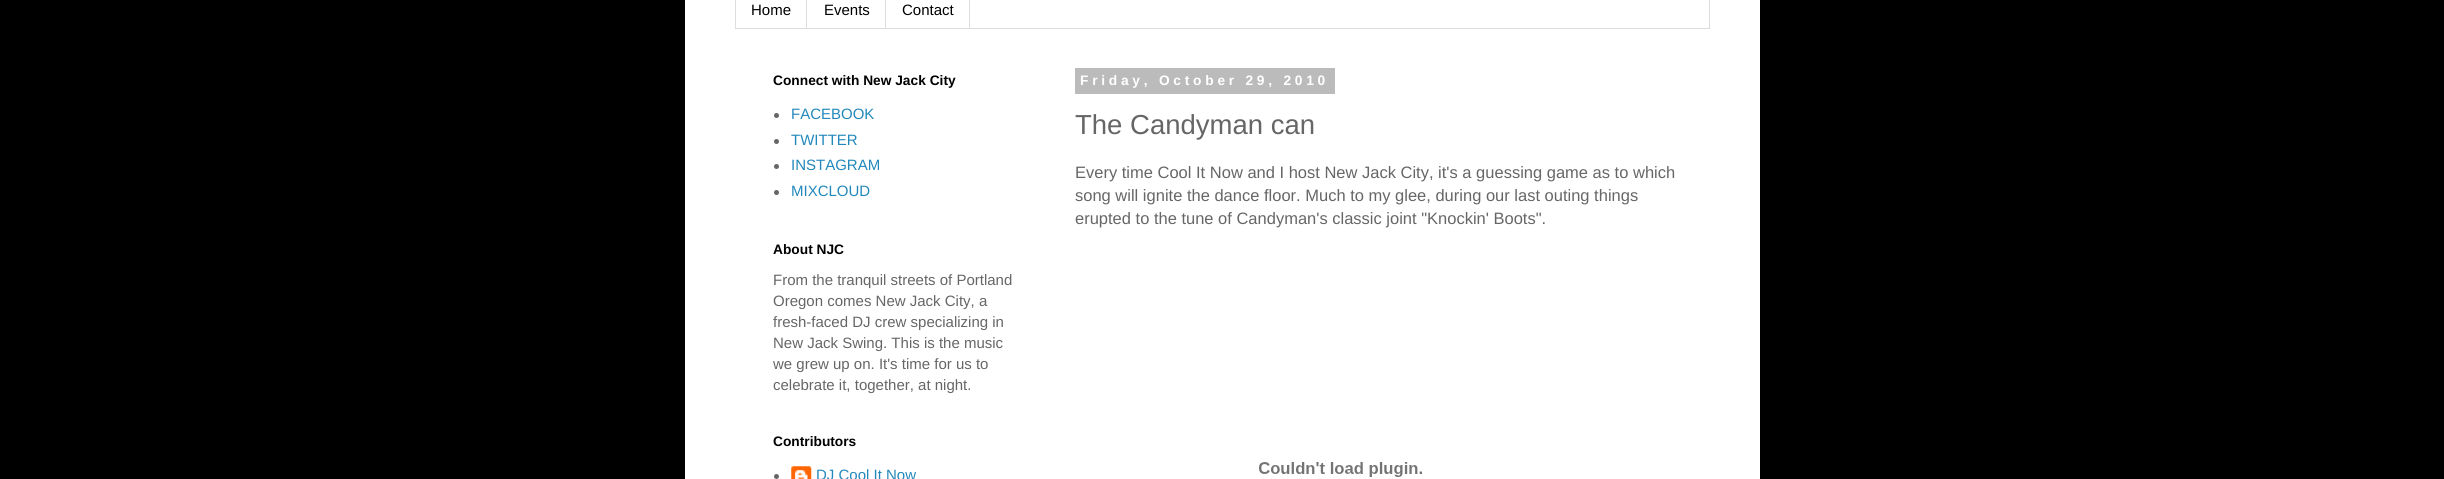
import math
import cairo


def write_spaced(ctx, x, y, s, letter, word):
	ctx.move_to(x, y)
	for ch in s:
		ctx.show_text(ch)
		ctx.rel_move_to(letter + word * (ch == ' '), 0)

def paste(ctx, path, x, y, w, h):
	ctx.save()
	ctx.set_source_surface(cairo.ImageSurface.create_from_png(path), x, y)
	ctx.rectangle(x, y, w, h)
	ctx.fill()
	ctx.restore()

def draw(ctx):
	ctx.set_source_rgb(0, 0, 0)
	ctx.paint()
	ctx.set_source_rgb(1, 1, 1)
	ctx.rectangle(685, 0, 1075, 479)
	ctx.fill()
	ctx.rectangle(735.5, -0.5, 974, 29)
	ctx.set_source_rgb(0.867, 0.867, 0.867)
	ctx.set_line_width(1)
	ctx.stroke()
	ctx.rectangle(806, 0, 1, 28)
	ctx.fill()
	ctx.select_font_face('Liberation Sans')
	ctx.set_font_size(15)
	ctx.set_source_rgb(0, 0, 0)
	ctx.move_to(751, 15)
	ctx.show_text('Home')
	ctx.set_source_rgb(0.867, 0.867, 0.867)
	ctx.rectangle(885, 0, 1, 28)
	ctx.fill()
	ctx.set_source_rgb(0, 0, 0)
	ctx.move_to(824, 15)
	ctx.show_text('Events')
	ctx.set_source_rgb(0.867, 0.867, 0.867)
	ctx.rectangle(969, 0, 1, 28)
	ctx.fill()
	ctx.set_source_rgb(0, 0, 0)
	ctx.move_to(902, 15)
	ctx.show_text('Contact')
	ctx.select_font_face('Liberation Sans', cairo.FONT_SLANT_NORMAL, cairo.FONT_WEIGHT_BOLD)
	ctx.set_font_size(13.75)
	ctx.move_to(773, 85)
	ctx.show_text('Connect with New Jack City')
	ctx.set_source_rgb(0.4, 0.4, 0.4)
	ctx.new_path()
	ctx.arc(776.5, 115.5, 2.5, 0, 2 * math.pi)
	ctx.fill()
	ctx.select_font_face('Liberation Sans')
	ctx.set_font_size(15)
	ctx.set_source_rgb(0.133, 0.533, 0.733)
	ctx.move_to(791, 119)
	ctx.show_text('FACEBOOK')
	ctx.set_source_rgb(0.4, 0.4, 0.4)
	ctx.new_path()
	ctx.arc(776.5, 141.5, 2.5, 0, 2 * math.pi)
	ctx.fill()
	ctx.set_source_rgb(0.133, 0.533, 0.733)
	ctx.move_to(791, 145)
	ctx.show_text('TWITTER')
	ctx.set_source_rgb(0.4, 0.4, 0.4)
	ctx.new_path()
	ctx.arc(776.5, 166.5, 2.5, 0, 2 * math.pi)
	ctx.fill()
	ctx.set_source_rgb(0.133, 0.533, 0.733)
	ctx.move_to(791, 170)
	ctx.show_text('INSTAGRAM')
	ctx.set_source_rgb(0.4, 0.4, 0.4)
	ctx.new_path()
	ctx.arc(776.5, 192.5, 2.5, 0, 2 * math.pi)
	ctx.fill()
	ctx.set_source_rgb(0.133, 0.533, 0.733)
	ctx.move_to(791, 196)
	ctx.show_text('MIXCLOUD')
	ctx.select_font_face('Liberation Sans', cairo.FONT_SLANT_NORMAL, cairo.FONT_WEIGHT_BOLD)
	ctx.set_font_size(13.75)
	ctx.set_source_rgb(0, 0, 0)
	ctx.move_to(773, 254)
	ctx.show_text('About NJC')
	ctx.select_font_face('Liberation Sans')
	ctx.set_font_size(15)
	ctx.set_source_rgb(0.4, 0.4, 0.4)
	for x, y, s in [
		(773, 285, 'From the tranquil streets of Portland'),
		(773, 306, 'Oregon comes New Jack City, a'),
		(773, 327, 'fresh-faced DJ crew specializing in'),
		(773, 348, 'New Jack Swing. This is the music'),
		(773, 369, 'we grew up on. It\'s time for us to'),
		(773, 390, 'celebrate it, together, at night.'),
	]:
		ctx.move_to(x, y)
		ctx.show_text(s)
	ctx.select_font_face('Liberation Sans', cairo.FONT_SLANT_NORMAL, cairo.FONT_WEIGHT_BOLD)
	ctx.set_font_size(13.75)
	ctx.set_source_rgb(0, 0, 0)
	ctx.move_to(773, 446)
	ctx.show_text('Contributors')
	ctx.set_source_rgb(0.4, 0.4, 0.4)
	ctx.new_path()
	ctx.arc(776.5, 476.5, 2.5, 0, 2 * math.pi)
	ctx.fill()
	paste(ctx, 'media/1.png', 791, 466, 21, 13)
	ctx.select_font_face('Liberation Sans')
	ctx.set_font_size(15)
	ctx.set_source_rgb(0.133, 0.533, 0.733)
	ctx.move_to(816, 480)
	ctx.show_text('DJ Cool It Now')
	ctx.set_source_rgb(0.733, 0.733, 0.733)
	ctx.rectangle(1075, 68, 260, 26)
	ctx.fill()
	ctx.select_font_face('Liberation Sans', cairo.FONT_SLANT_NORMAL, cairo.FONT_WEIGHT_BOLD)
	ctx.set_font_size(13.75)
	ctx.set_source_rgb(1, 1, 1)
	write_spaced(ctx, 1080, 85, 'Friday, October 29, 2010', 3.75, 0)
	ctx.select_font_face('Liberation Sans')
	ctx.set_font_size(27.5)
	ctx.set_source_rgb(0.4, 0.4, 0.4)
	ctx.move_to(1075, 134)
	ctx.show_text('The Candyman can')
	ctx.set_font_size(16.5)
	for x, y, s in [
		(1075, 178, 'Every time Cool It Now and I host New Jack City, it\'s a guessing game as to which'),
		(1075, 201, 'song will ignite the dance floor. Much to my glee, during our last outing things'),
		(1075, 224, 'erupted to the tune of Candyman\'s classic joint "Knockin\' Boots".'),
	]:
		ctx.move_to(x, y)
		ctx.show_text(s)
	paste(ctx, 'media/2.png', 1259, 462, 163, 15)


surface = cairo.ImageSurface(cairo.FORMAT_RGB24, 2444, 479)
ctx = cairo.Context(surface)
options = cairo.FontOptions()
options.set_hint_metrics(cairo.HINT_METRICS_OFF)
options.set_hint_style(cairo.HINT_STYLE_NONE)
ctx.set_font_options(options)
ctx.set_miter_limit(4)
draw(ctx)
surface.write_to_png('image.png')
